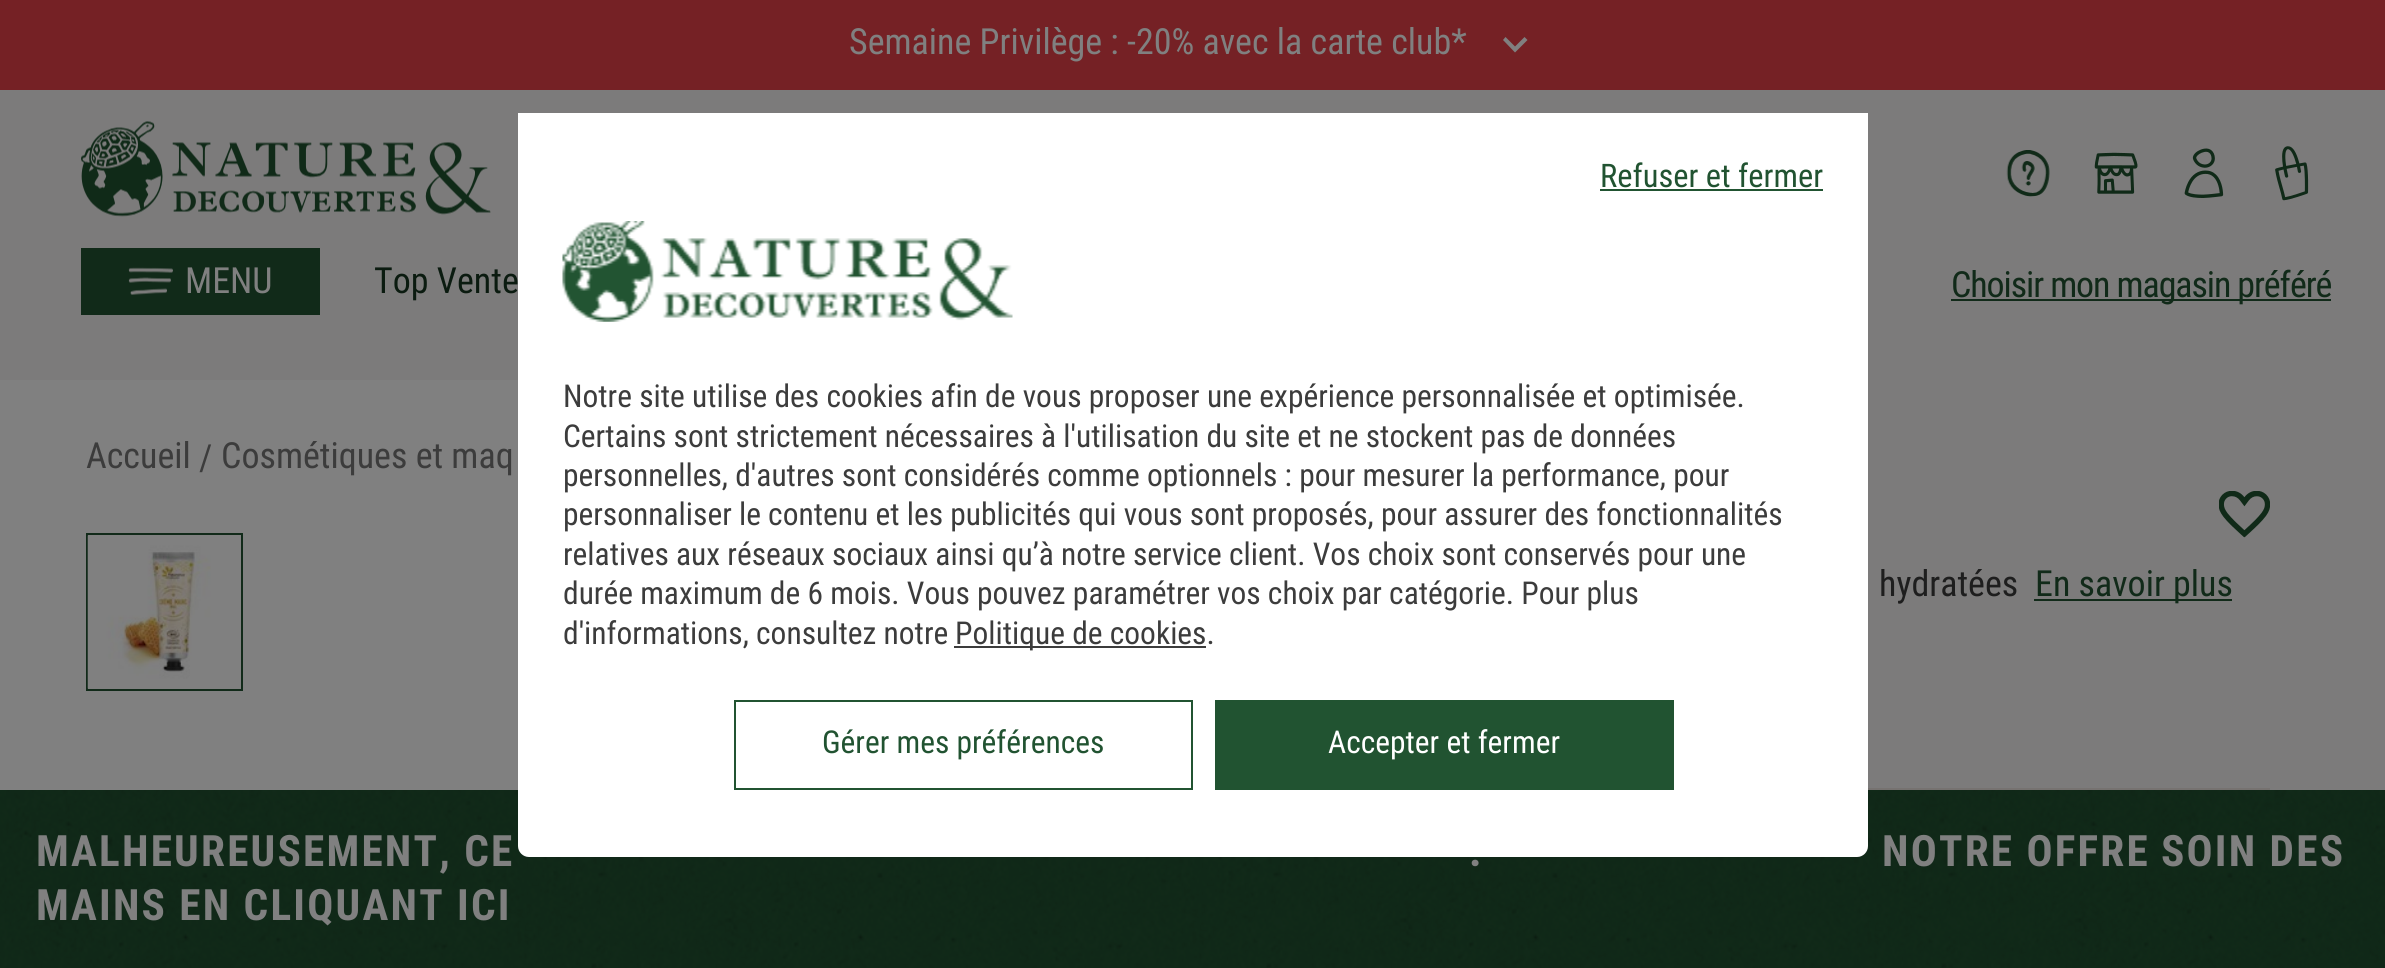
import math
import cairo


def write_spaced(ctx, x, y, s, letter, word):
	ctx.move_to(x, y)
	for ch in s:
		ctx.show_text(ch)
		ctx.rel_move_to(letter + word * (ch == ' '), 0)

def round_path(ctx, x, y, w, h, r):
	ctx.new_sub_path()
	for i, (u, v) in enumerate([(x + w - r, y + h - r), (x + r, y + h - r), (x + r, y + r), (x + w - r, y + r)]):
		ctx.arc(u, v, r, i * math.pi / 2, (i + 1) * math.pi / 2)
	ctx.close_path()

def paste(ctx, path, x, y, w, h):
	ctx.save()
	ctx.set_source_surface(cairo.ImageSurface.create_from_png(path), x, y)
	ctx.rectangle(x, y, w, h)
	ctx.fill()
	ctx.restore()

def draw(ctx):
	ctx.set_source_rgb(0.486, 0.482, 0.482)
	ctx.paint()
	ctx.set_source_rgb(0.459, 0.129, 0.145)
	ctx.rectangle(0, 0, 2385, 90)
	ctx.fill()
	ctx.select_font_face('Roboto Condensed')
	ctx.set_font_size(36)
	ctx.set_source_rgb(0.502, 0.502, 0.502)
	ctx.move_to(849, 54)
	ctx.show_text('Semaine Privilège : -20% avec la carte club*')
	ctx.new_path()
	ctx.move_to(1503, 40)
	ctx.line_to(1505.5, 37)
	ctx.line_to(1515, 46.5)
	ctx.line_to(1524.5, 37)
	ctx.line_to(1527.5, 40)
	ctx.line_to(1515, 52.5)
	ctx.close_path()
	ctx.fill()
	ctx.set_source_rgb(0.067, 0.165, 0.098)
	ctx.rectangle(81, 248, 239, 67)
	ctx.fill()
	paste(ctx, 'media/1.png', 128, 267, 45, 28)
	ctx.set_source_rgb(0.502, 0.502, 0.502)
	ctx.move_to(185, 293)
	ctx.show_text('MENU')
	ctx.set_source_rgb(0.043, 0.106, 0.063)
	ctx.move_to(374, 293)
	ctx.show_text('Top Vente')
	paste(ctx, 'media/2.png', 81, 121, 410, 96)
	paste(ctx, 'media/3.png', 2006, 150, 44, 47)
	paste(ctx, 'media/4.png', 2094, 152, 44, 42)
	paste(ctx, 'media/5.png', 2184, 148, 40, 50)
	paste(ctx, 'media/6.png', 2275, 146, 34, 55)
	ctx.set_source_rgb(0.067, 0.165, 0.098)
	ctx.rectangle(1951, 299, 380, 2)
	ctx.fill()
	write_spaced(ctx, 1951, 297, 'Choisir mon magasin préféré', -1.1, 0)
	ctx.rectangle(1311, 789, 958, 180)
	ctx.set_source_rgb(0.463, 0.447, 0.439)
	ctx.stroke()
	ctx.set_source_rgb(0.067, 0.165, 0.098)
	ctx.rectangle(0, 790, 2385, 178)
	ctx.fill()
	paste(ctx, 'media/10.png', 0, 790, 2385, 178)
	ctx.set_source_rgb(1, 1, 1)
	round_path(ctx, 518, 113, 1350, 744, 11)
	ctx.fill()
	ctx.rectangle(518, 113, 1350, 11)
	ctx.fill()
	ctx.set_font_size(32.5)
	ctx.set_source_rgb(0.129, 0.325, 0.192)
	ctx.move_to(1600, 187)
	ctx.show_text('Refuser et fermer')
	ctx.rectangle(1600, 189, 223, 2)
	ctx.fill()
	ctx.rectangle(735, 701, 457, 88)
	ctx.stroke()
	ctx.set_font_size(31.5)
	ctx.move_to(822, 753)
	ctx.show_text('Gérer mes préférences')
	ctx.rectangle(1215, 700, 459, 90)
	ctx.fill()
	ctx.set_source_rgb(1, 1, 1)
	ctx.move_to(1328, 753)
	ctx.show_text('Accepter et fermer')
	paste(ctx, 'media/7.png', 562, 221, 451, 101)
	ctx.set_source_rgb(0.235, 0.235, 0.235)
	for x, y, s in [
		(563, 407, 'Notre site utilise des cookies afin de vous proposer une expérience personnalisée et optimisée.'),
		(563, 447, 'Certains sont strictement nécessaires à l\'utilisation du site et ne stockent pas de données'),
		(563, 486, 'personnelles, d\'autres sont considérés comme optionnels : pour mesurer la performance, pour'),
		(563, 525, 'personnaliser le contenu et les publicités qui vous sont proposés, pour assurer des fonctionnalités'),
		(563, 565, 'relatives aux réseaux sociaux ainsi qu’à notre service client. Vos choix sont conservés pour une'),
		(563, 604, 'durée maximum de 6 mois. Vous pouvez paramétrer vos choix par catégorie. Pour plus'),
		(563, 644, 'd\'informations, consultez notre'),
	]:
		ctx.move_to(x, y)
		ctx.show_text(s)
	ctx.rectangle(954, 646, 252, 2)
	ctx.fill()
	ctx.move_to(955, 644)
	ctx.show_text('Politique de cookies.')
	ctx.set_source_rgb(0.502, 0.502, 0.502)
	ctx.rectangle(0, 380, 518, 410)
	ctx.fill()
	ctx.set_font_size(36)
	ctx.set_source_rgb(0.235, 0.235, 0.235)
	for x, y, s in [
		(86, 468, 'Accueil'),
		(199, 470, '/'),
		(221, 468, 'Cosmétiques et maq'),
	]:
		ctx.move_to(x, y)
		ctx.show_text(s)
	ctx.rectangle(87, 534, 155, 156)
	ctx.set_source_rgb(0.067, 0.165, 0.098)
	ctx.stroke()
	paste(ctx, 'media/8.png', 87, 535, 124, 154)
	paste(ctx, 'media/9.png', 2219, 491, 51, 47)
	ctx.set_source_rgb(0.118, 0.118, 0.118)
	ctx.move_to(1879, 596)
	ctx.show_text('hydratées')
	ctx.set_source_rgb(0.067, 0.165, 0.098)
	ctx.rectangle(2034, 599, 198, 2)
	ctx.fill()
	ctx.move_to(2035, 596)
	ctx.show_text('En savoir plus')
	ctx.select_font_face('Roboto Condensed', cairo.FONT_SLANT_NORMAL, cairo.FONT_WEIGHT_BOLD)
	ctx.set_font_size(43.25)
	ctx.set_source_rgb(0.502, 0.502, 0.502)
	for x, y, s in [
		(36, 866, 'MALHEUREUSEMENT, CE'),
		(1469, 866, '.'),
		(1882, 866, 'NOTRE OFFRE'),
		(2161, 866, 'SOIN DES'),
		(36, 920, 'MAINS EN CLIQUANT ICI'),
	]:
		write_spaced(ctx, x, y, s, 2.2, 0)


surface = cairo.ImageSurface(cairo.FORMAT_RGB24, 2385, 968)
ctx = cairo.Context(surface)
options = cairo.FontOptions()
options.set_hint_metrics(cairo.HINT_METRICS_OFF)
options.set_hint_style(cairo.HINT_STYLE_NONE)
ctx.set_font_options(options)
ctx.set_miter_limit(4)
draw(ctx)
surface.write_to_png('image.png')
